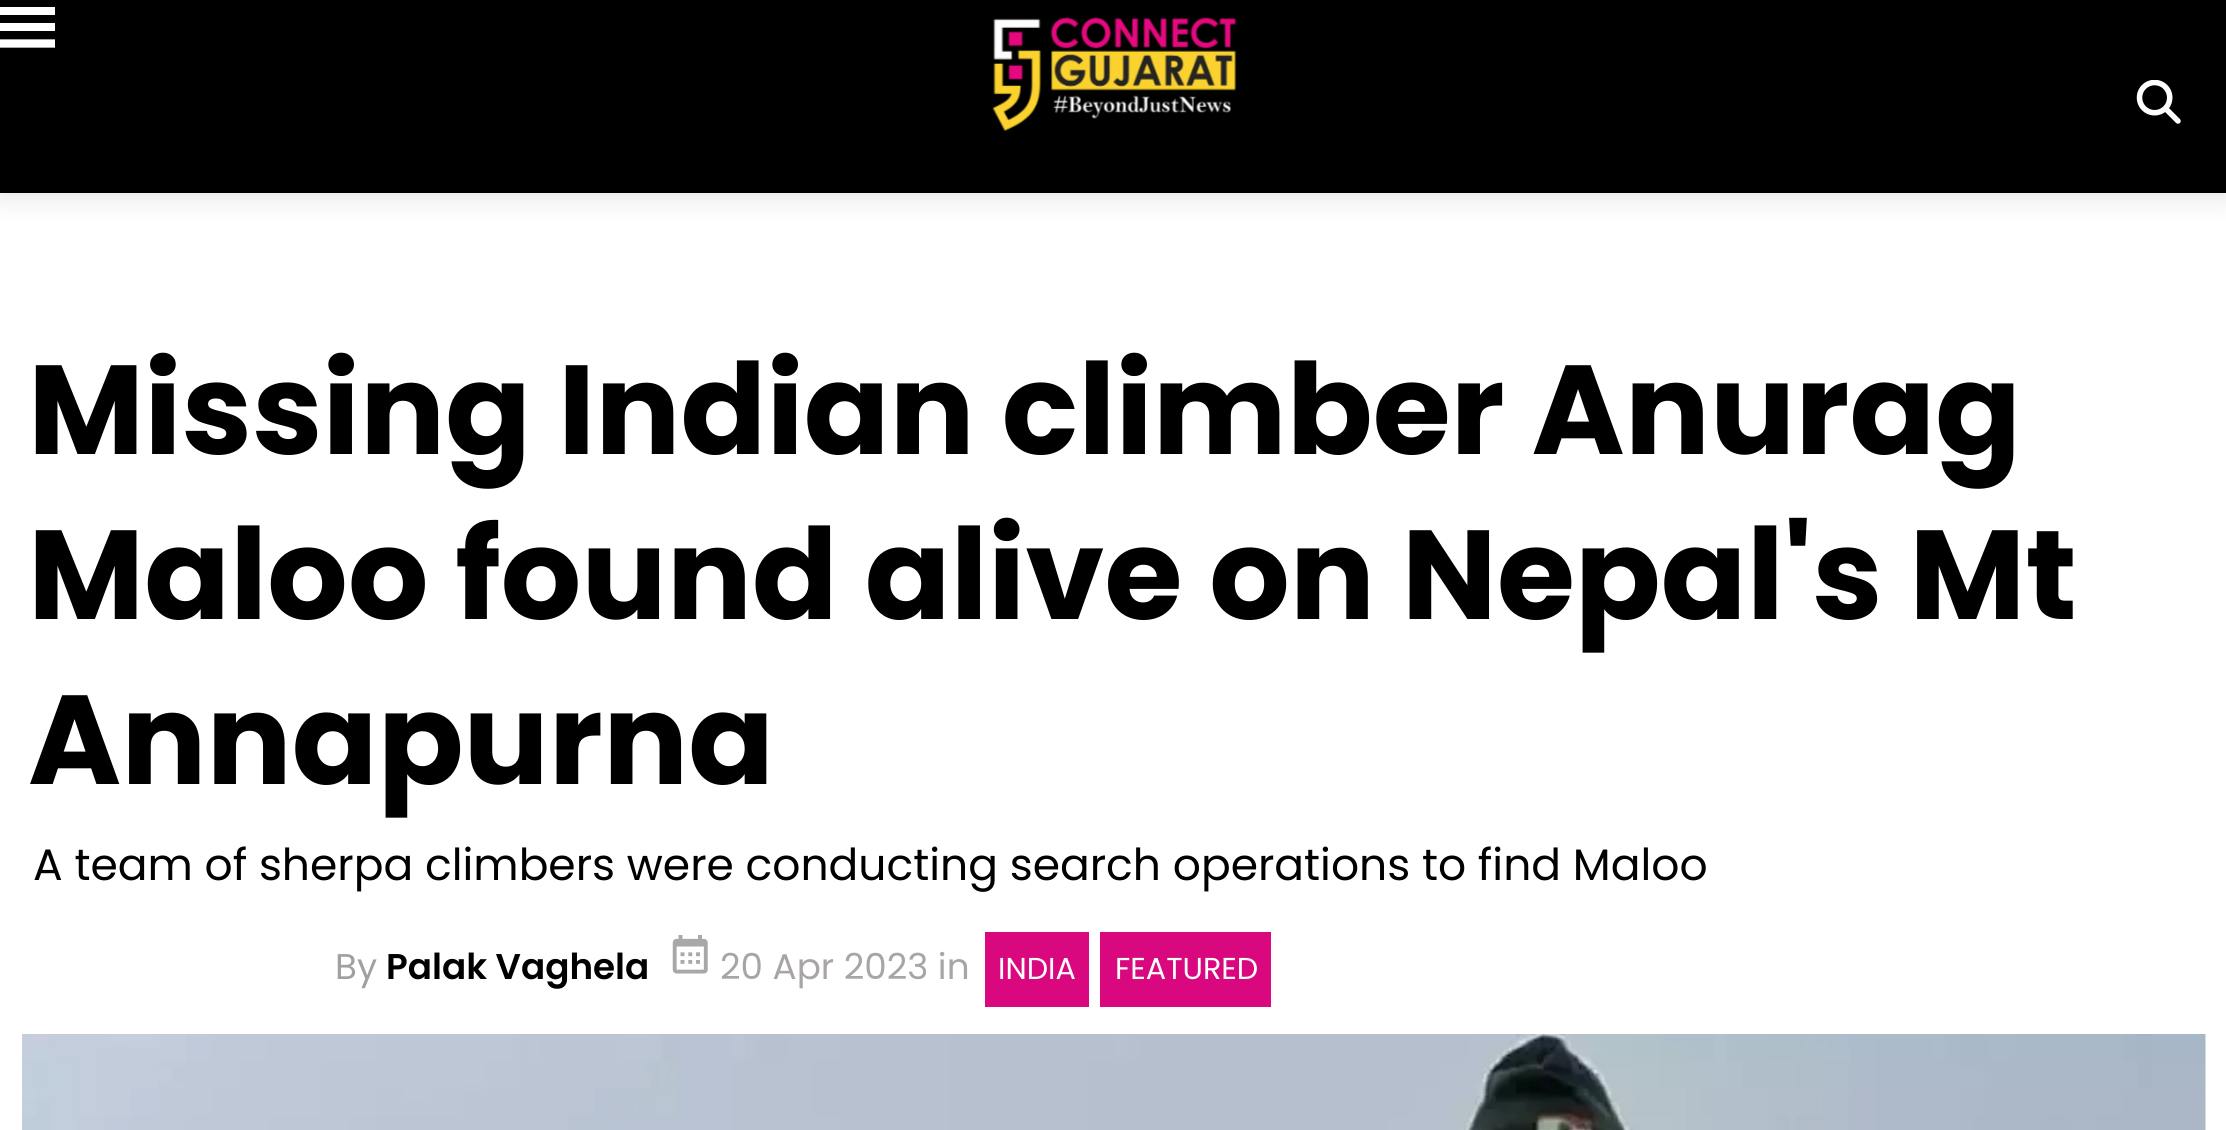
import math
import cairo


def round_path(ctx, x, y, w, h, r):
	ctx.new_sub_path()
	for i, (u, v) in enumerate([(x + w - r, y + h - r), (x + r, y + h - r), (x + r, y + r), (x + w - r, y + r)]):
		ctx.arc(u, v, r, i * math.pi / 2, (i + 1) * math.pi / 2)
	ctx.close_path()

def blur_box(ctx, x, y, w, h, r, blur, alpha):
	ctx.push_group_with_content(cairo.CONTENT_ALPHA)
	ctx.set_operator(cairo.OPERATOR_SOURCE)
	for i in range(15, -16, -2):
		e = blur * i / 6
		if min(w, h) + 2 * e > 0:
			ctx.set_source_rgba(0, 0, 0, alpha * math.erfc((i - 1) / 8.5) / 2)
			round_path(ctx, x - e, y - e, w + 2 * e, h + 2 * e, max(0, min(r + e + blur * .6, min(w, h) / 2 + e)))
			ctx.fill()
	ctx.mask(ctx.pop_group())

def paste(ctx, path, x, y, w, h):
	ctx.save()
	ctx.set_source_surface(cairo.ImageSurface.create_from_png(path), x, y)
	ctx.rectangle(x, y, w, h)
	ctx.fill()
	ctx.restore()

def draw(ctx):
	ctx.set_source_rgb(1, 1, 1)
	ctx.paint()
	ctx.set_source_rgb(0, 0, 0)
	blur_box(ctx, 0, 6, 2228, 192, 0, 14, 0.1)
	ctx.set_source_rgb(0, 0, 0)
	ctx.rectangle(0, 0, 2226, 193)
	ctx.fill()
	ctx.set_source_rgb(1, 1, 1)
	ctx.rectangle(0, 7, 55, 8)
	ctx.rectangle(0, 23, 55, 8)
	ctx.fill()
	paste(ctx, 'media/1.png', 992, 17, 245, 114)
	ctx.new_path()
	ctx.move_to(0, 43.5)
	ctx.line_to(55, 43.5)
	ctx.set_line_width(8.3)
	ctx.stroke()
	paste(ctx, 'media/2.png', 2136, 80, 45, 44)
	ctx.select_font_face('Poppins', cairo.FONT_SLANT_NORMAL, cairo.FONT_WEIGHT_BOLD)
	ctx.set_font_size(126.5)
	ctx.set_source_rgb(0, 0, 0)
	for x, y, s in [
		(28, 454, 'Missing Indian climber Anurag'),
		(28, 619, 'Maloo found alive on Nepal\'s Mt'),
		(28, 784, 'Annapurna'),
	]:
		ctx.move_to(x, y)
		ctx.show_text(s)
	ctx.select_font_face('Poppins')
	ctx.set_font_size(44)
	ctx.move_to(33, 880)
	ctx.show_text('A team of sherpa climbers were conducting search operations to find Maloo')
	ctx.set_font_size(35.75)
	ctx.set_source_rgb(0.627, 0.627, 0.627)
	ctx.move_to(335, 979)
	ctx.show_text('By')
	ctx.select_font_face('Poppins SemiBold')
	ctx.set_source_rgb(0, 0, 0)
	ctx.move_to(386, 979)
	ctx.show_text('Palak Vaghela')
	paste(ctx, 'media/3.png', 672, 935, 36, 39)
	ctx.select_font_face('Poppins')
	ctx.set_source_rgb(0.663, 0.647, 0.647)
	ctx.move_to(720, 979)
	ctx.show_text('20 Apr 2023 in')
	ctx.set_source_rgb(0.851, 0.035, 0.498)
	ctx.rectangle(985, 932, 104, 75)
	ctx.fill()
	ctx.set_font_size(30.25)
	ctx.set_source_rgb(1, 1, 1)
	ctx.move_to(998, 979)
	ctx.show_text('INDIA')
	ctx.set_source_rgb(0.851, 0.035, 0.498)
	ctx.rectangle(1100, 932, 171, 75)
	ctx.fill()
	ctx.set_source_rgb(1, 1, 1)
	ctx.move_to(1115, 979)
	ctx.show_text('FEATURED')
	paste(ctx, 'media/4.png', 22, 1034, 2184, 96)


surface = cairo.ImageSurface(cairo.FORMAT_RGB24, 2226, 1130)
ctx = cairo.Context(surface)
options = cairo.FontOptions()
options.set_hint_metrics(cairo.HINT_METRICS_OFF)
options.set_hint_style(cairo.HINT_STYLE_NONE)
ctx.set_font_options(options)
ctx.set_miter_limit(4)
draw(ctx)
surface.write_to_png('image.png')
